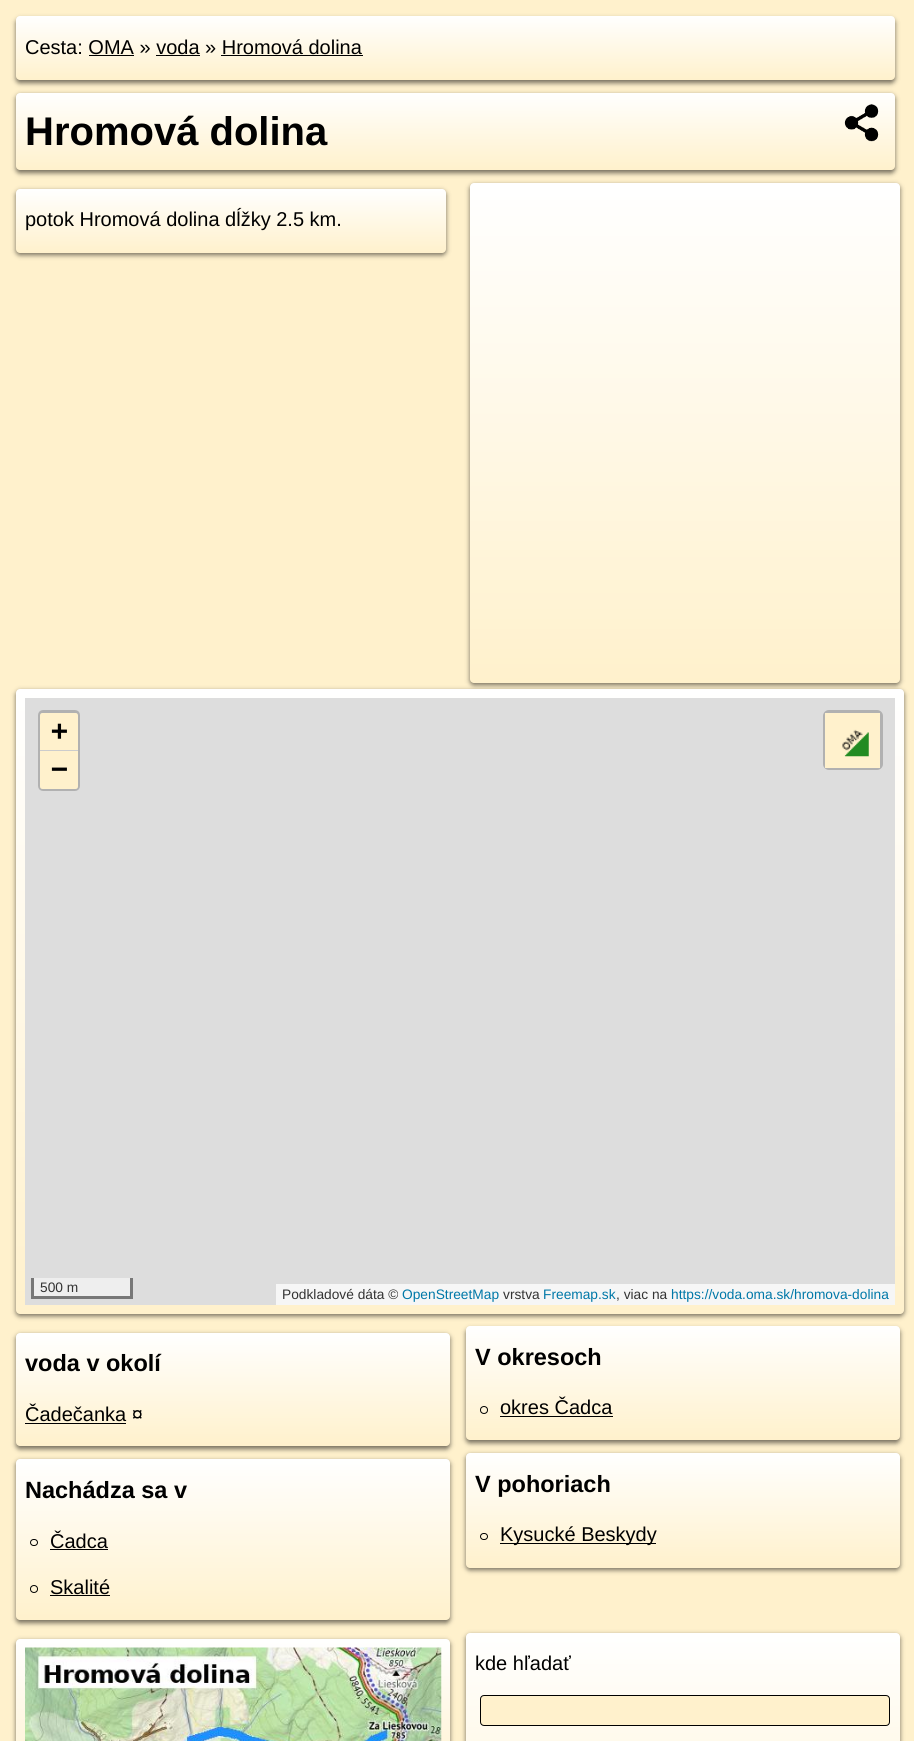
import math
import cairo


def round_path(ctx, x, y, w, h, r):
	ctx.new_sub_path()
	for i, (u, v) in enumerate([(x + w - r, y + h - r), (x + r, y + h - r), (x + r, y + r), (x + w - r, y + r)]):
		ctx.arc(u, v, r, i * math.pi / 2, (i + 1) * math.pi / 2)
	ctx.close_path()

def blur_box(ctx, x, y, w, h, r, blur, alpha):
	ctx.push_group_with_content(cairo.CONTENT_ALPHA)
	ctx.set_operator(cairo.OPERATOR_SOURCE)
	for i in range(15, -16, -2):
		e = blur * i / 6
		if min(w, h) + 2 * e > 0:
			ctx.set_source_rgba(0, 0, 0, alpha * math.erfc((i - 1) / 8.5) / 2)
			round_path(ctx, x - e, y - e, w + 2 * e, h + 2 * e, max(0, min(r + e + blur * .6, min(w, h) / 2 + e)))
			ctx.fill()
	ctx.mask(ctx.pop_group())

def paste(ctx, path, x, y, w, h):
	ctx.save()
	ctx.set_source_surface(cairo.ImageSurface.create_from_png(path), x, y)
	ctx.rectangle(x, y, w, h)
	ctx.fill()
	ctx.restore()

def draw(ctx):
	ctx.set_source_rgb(1, 0.945, 0.8)
	ctx.paint()
	ctx.set_source_rgb(0, 0, 0)
	blur_box(ctx, 16, 19, 879, 64, 4, 2.5, 0.55)
	gradient = cairo.LinearGradient(456, 16, 456, 80)
	gradient.add_color_stop_rgba(0, 1, 1, 1, 1)
	gradient.add_color_stop_rgba(1, 1, 0.945, 0.8, 1)
	ctx.set_source(gradient)
	round_path(ctx, 16, 16, 879, 64, 4)
	ctx.fill()
	ctx.select_font_face('Liberation Sans')
	ctx.set_font_size(20)
	ctx.set_source_rgb(0, 0, 0)
	ctx.move_to(25, 54)
	ctx.show_text('Cesta: OMA » voda » Hromová dolina')
	ctx.rectangle(89, 55, 45, 1)
	ctx.rectangle(156, 55, 44, 1)
	ctx.rectangle(221, 55, 142, 1)
	ctx.fill()
	ctx.set_source_rgb(0, 0, 0)
	blur_box(ctx, 16, 95, 879, 78, 4, 2.5, 0.55)
	gradient = cairo.LinearGradient(456, 92, 456, 170)
	gradient.add_color_stop_rgba(0, 1, 1, 1, 1)
	gradient.add_color_stop_rgba(1, 1, 0.945, 0.8, 1)
	ctx.set_source(gradient)
	round_path(ctx, 16, 93, 879, 77, 4)
	ctx.fill()
	ctx.select_font_face('Liberation Sans', cairo.FONT_SLANT_NORMAL, cairo.FONT_WEIGHT_BOLD)
	ctx.set_font_size(40)
	ctx.set_source_rgb(0, 0, 0)
	ctx.move_to(25, 145)
	ctx.show_text('Hromová dolina')
	paste(ctx, 'media/1.png', 844, 104, 35, 38)
	ctx.set_source_rgb(0, 0, 0)
	blur_box(ctx, 16, 191, 430, 64, 4, 2.5, 0.55)
	gradient = cairo.LinearGradient(231, 189, 231, 253)
	gradient.add_color_stop_rgba(0, 1, 1, 1, 1)
	gradient.add_color_stop_rgba(1, 1, 0.945, 0.8, 1)
	ctx.set_source(gradient)
	round_path(ctx, 16, 189, 430, 64, 4)
	ctx.fill()
	ctx.select_font_face('Liberation Sans')
	ctx.set_font_size(20)
	ctx.set_source_rgb(0, 0, 0)
	ctx.move_to(25, 226)
	ctx.show_text('potok Hromová dolina dĺžky 2.5 km.')
	ctx.set_source_rgb(0, 0, 0)
	blur_box(ctx, 470, 185, 430, 500, 4, 2.5, 0.55)
	gradient = cairo.LinearGradient(685, 182, 685, 683)
	gradient.add_color_stop_rgba(0, 1, 1, 1, 1)
	gradient.add_color_stop_rgba(1, 1, 0.945, 0.8, 1)
	ctx.set_source(gradient)
	round_path(ctx, 470, 183, 430, 500, 4)
	ctx.fill()
	ctx.set_source_rgb(0, 0, 0)
	blur_box(ctx, 16, 691, 888, 625, 4, 2.5, 0.55)
	gradient = cairo.LinearGradient(460, 689, 460, 1314)
	gradient.add_color_stop_rgba(0, 1, 1, 1, 1)
	gradient.add_color_stop_rgba(1, 1, 0.945, 0.8, 1)
	ctx.set_source(gradient)
	round_path(ctx, 16, 689, 888, 625, 4)
	ctx.fill()
	ctx.set_source_rgb(0.867, 0.867, 0.867)
	ctx.rectangle(25, 698, 870, 607)
	ctx.fill()
	round_path(ctx, 39.5, 711.5, 39, 78, 3.5)
	ctx.set_source_rgb(0.694, 0.694, 0.694)
	ctx.set_line_width(3)
	ctx.stroke()
	ctx.set_source_rgb(1, 0.945, 0.8)
	ctx.new_path()
	ctx.move_to(42.5, 713)
	ctx.line_to(75.5, 713)
	ctx.curve_to(77, 713, 78, 714, 78, 715.5)
	ctx.line_to(78, 751)
	ctx.line_to(40, 751)
	ctx.line_to(40, 715.5)
	ctx.curve_to(40, 714, 41, 713, 42.5, 713)
	ctx.close_path()
	ctx.fill()
	ctx.set_source_rgb(0.8, 0.8, 0.8)
	ctx.rectangle(40, 750, 38, 1)
	ctx.fill()
	ctx.select_font_face('DejaVu Sans Mono', cairo.FONT_SLANT_NORMAL, cairo.FONT_WEIGHT_BOLD)
	ctx.set_font_size(28)
	ctx.set_source_rgb(0, 0, 0)
	ctx.move_to(51, 740)
	ctx.show_text('+')
	ctx.set_source_rgb(1, 0.945, 0.8)
	ctx.new_path()
	ctx.move_to(40, 751)
	ctx.line_to(78, 751)
	ctx.line_to(78, 786.5)
	ctx.curve_to(78, 788, 77, 789, 75.5, 789)
	ctx.line_to(42.5, 789)
	ctx.curve_to(41, 789, 40, 788, 40, 786.5)
	ctx.close_path()
	ctx.fill()
	ctx.set_source_rgb(0, 0, 0)
	ctx.move_to(51, 778)
	ctx.show_text('−')
	round_path(ctx, 824.5, 711.5, 57, 57, 4.5)
	ctx.set_source_rgba(0, 0, 0, 0.2)
	ctx.stroke()
	ctx.set_source_rgb(1, 0.945, 0.8)
	ctx.rectangle(825, 713, 55, 55)
	ctx.fill()
	paste(ctx, 'media/2.png', 842, 729, 27, 28)
	ctx.set_source_rgb(0.933, 0.933, 0.933)
	ctx.rectangle(34, 1278, 96, 18)
	ctx.fill()
	ctx.set_source_rgb(0.467, 0.467, 0.467)
	ctx.rectangle(130, 1278, 3, 21)
	ctx.rectangle(31, 1296, 102, 3)
	ctx.rectangle(31, 1278, 3, 21)
	ctx.fill()
	ctx.select_font_face('Liberation Sans')
	ctx.set_font_size(13.75)
	ctx.set_source_rgb(0.2, 0.2, 0.2)
	ctx.move_to(40, 1292)
	ctx.show_text('500 m')
	ctx.set_source_rgb(0.961, 0.961, 0.961)
	ctx.rectangle(276, 1284, 619, 21)
	ctx.fill()
	ctx.set_source_rgb(0.2, 0.2, 0.2)
	ctx.move_to(282, 1299)
	ctx.show_text('Podkladové dáta ©')
	ctx.set_source_rgb(0, 0.471, 0.659)
	ctx.move_to(402, 1299)
	ctx.show_text('OpenStreetMap')
	ctx.set_source_rgb(0.2, 0.2, 0.2)
	ctx.move_to(503, 1299)
	ctx.show_text('vrstva')
	ctx.set_source_rgb(0, 0.471, 0.659)
	ctx.move_to(543, 1299)
	ctx.show_text('Freemap.sk')
	ctx.set_source_rgb(0.2, 0.2, 0.2)
	ctx.move_to(616, 1299)
	ctx.show_text(', viac na')
	ctx.set_source_rgb(0, 0.471, 0.659)
	ctx.move_to(671, 1299)
	ctx.show_text('https://voda.oma.sk/hromova-dolina')
	ctx.set_source_rgb(0, 0, 0)
	blur_box(ctx, 16, 1335, 434, 114, 4, 2.5, 0.55)
	gradient = cairo.LinearGradient(233, 1333, 233, 1446)
	gradient.add_color_stop_rgba(0, 1, 1, 1, 1)
	gradient.add_color_stop_rgba(1, 1, 0.945, 0.8, 1)
	ctx.set_source(gradient)
	round_path(ctx, 16, 1333, 434, 113, 4)
	ctx.fill()
	ctx.select_font_face('Liberation Sans', cairo.FONT_SLANT_NORMAL, cairo.FONT_WEIGHT_BOLD)
	ctx.set_font_size(23.5)
	ctx.set_source_rgb(0, 0, 0)
	ctx.move_to(25, 1371)
	ctx.show_text('voda v okolí')
	ctx.select_font_face('Liberation Sans')
	ctx.set_font_size(20)
	ctx.move_to(25, 1421)
	ctx.show_text('Čadečanka ¤')
	ctx.rectangle(25, 1423, 101, 1)
	ctx.fill()
	ctx.set_source_rgb(0, 0, 0)
	blur_box(ctx, 466, 1329, 434, 114, 4, 2.5, 0.55)
	gradient = cairo.LinearGradient(683, 1326, 683, 1440)
	gradient.add_color_stop_rgba(0, 1, 1, 1, 1)
	gradient.add_color_stop_rgba(1, 1, 0.945, 0.8, 1)
	ctx.set_source(gradient)
	round_path(ctx, 466, 1326, 434, 114, 4)
	ctx.fill()
	ctx.select_font_face('Liberation Sans', cairo.FONT_SLANT_NORMAL, cairo.FONT_WEIGHT_BOLD)
	ctx.set_font_size(23.5)
	ctx.set_source_rgb(0, 0, 0)
	ctx.move_to(475, 1365)
	ctx.show_text('V okresoch')
	ctx.new_path()
	ctx.arc(484, 1410, 3.5, 0, 2 * math.pi)
	ctx.set_line_width(1)
	ctx.stroke()
	ctx.select_font_face('Liberation Sans')
	ctx.set_font_size(20)
	ctx.move_to(500, 1414)
	ctx.show_text('okres Čadca')
	ctx.rectangle(500, 1416, 113, 1)
	ctx.fill()
	ctx.set_source_rgb(0, 0, 0)
	blur_box(ctx, 16, 1461, 434, 162, 4, 2.5, 0.55)
	gradient = cairo.LinearGradient(233, 1459, 233, 1620)
	gradient.add_color_stop_rgba(0, 1, 1, 1, 1)
	gradient.add_color_stop_rgba(1, 1, 0.945, 0.8, 1)
	ctx.set_source(gradient)
	round_path(ctx, 16, 1459, 434, 161, 4)
	ctx.fill()
	ctx.select_font_face('Liberation Sans', cairo.FONT_SLANT_NORMAL, cairo.FONT_WEIGHT_BOLD)
	ctx.set_font_size(23.5)
	ctx.set_source_rgb(0, 0, 0)
	ctx.move_to(25, 1498)
	ctx.show_text('Nachádza sa v')
	round_path(ctx, 30.5, 1539.5, 7, 6, 3)
	ctx.stroke()
	ctx.select_font_face('Liberation Sans')
	ctx.set_font_size(20)
	ctx.move_to(50, 1548)
	ctx.show_text('Čadca')
	ctx.rectangle(50, 1549, 58, 1)
	ctx.fill()
	ctx.arc(34, 1589, 3.5, 0, 2 * math.pi)
	ctx.stroke()
	ctx.move_to(50, 1594)
	ctx.show_text('Skalité')
	ctx.rectangle(50, 1595, 60, 1)
	ctx.fill()
	ctx.set_source_rgb(0, 0, 0)
	blur_box(ctx, 466, 1455, 434, 115, 4, 2.5, 0.55)
	gradient = cairo.LinearGradient(683, 1453, 683, 1568)
	gradient.add_color_stop_rgba(0, 1, 1, 1, 1)
	gradient.add_color_stop_rgba(1, 1, 0.945, 0.8, 1)
	ctx.set_source(gradient)
	round_path(ctx, 466, 1453, 434, 115, 4)
	ctx.fill()
	ctx.select_font_face('Liberation Sans', cairo.FONT_SLANT_NORMAL, cairo.FONT_WEIGHT_BOLD)
	ctx.set_font_size(23.5)
	ctx.set_source_rgb(0, 0, 0)
	ctx.move_to(475, 1492)
	ctx.show_text('V pohoriach')
	round_path(ctx, 480.5, 1533.5, 7, 6, 3)
	ctx.stroke()
	ctx.rectangle(500, 1543, 156, 1)
	ctx.fill()
	ctx.select_font_face('Liberation Sans')
	ctx.set_font_size(20)
	ctx.move_to(500, 1541)
	ctx.show_text('Kysucké Beskydy')
	ctx.set_source_rgb(0, 0, 0)
	blur_box(ctx, 16, 1641, 434, 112, 4, 2.5, 0.55)
	gradient = cairo.LinearGradient(233, 1639, 233, 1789)
	gradient.add_color_stop_rgba(0, 1, 1, 1, 1)
	gradient.add_color_stop_rgba(1, 1, 0.945, 0.8, 1)
	ctx.set_source(gradient)
	round_path(ctx, 16, 1639, 434, 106, 4)
	ctx.fill()
	paste(ctx, 'media/3.png', 25, 1647, 417, 94)
	ctx.set_source_rgb(0, 0, 0)
	blur_box(ctx, 466, 1635, 434, 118, 4, 2.5, 0.55)
	gradient = cairo.LinearGradient(683, 1633, 683, 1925)
	gradient.add_color_stop_rgba(0, 1, 1, 1, 1)
	gradient.add_color_stop_rgba(1, 1, 0.945, 0.8, 1)
	ctx.set_source(gradient)
	round_path(ctx, 466, 1633, 434, 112, 4)
	ctx.fill()
	ctx.set_source_rgb(0, 0, 0)
	ctx.move_to(475, 1670)
	ctx.show_text('kde hľadať')
	ctx.set_source_rgb(1, 0.945, 0.8)
	round_path(ctx, 480.5, 1695.5, 409, 30, 3.5)
	ctx.fill_preserve()
	ctx.set_source_rgb(0, 0, 0)
	ctx.stroke()


surface = cairo.ImageSurface(cairo.FORMAT_RGB24, 914, 1741)
ctx = cairo.Context(surface)
options = cairo.FontOptions()
options.set_hint_metrics(cairo.HINT_METRICS_OFF)
options.set_hint_style(cairo.HINT_STYLE_NONE)
ctx.set_font_options(options)
ctx.set_miter_limit(4)
draw(ctx)
surface.write_to_png('image.png')
